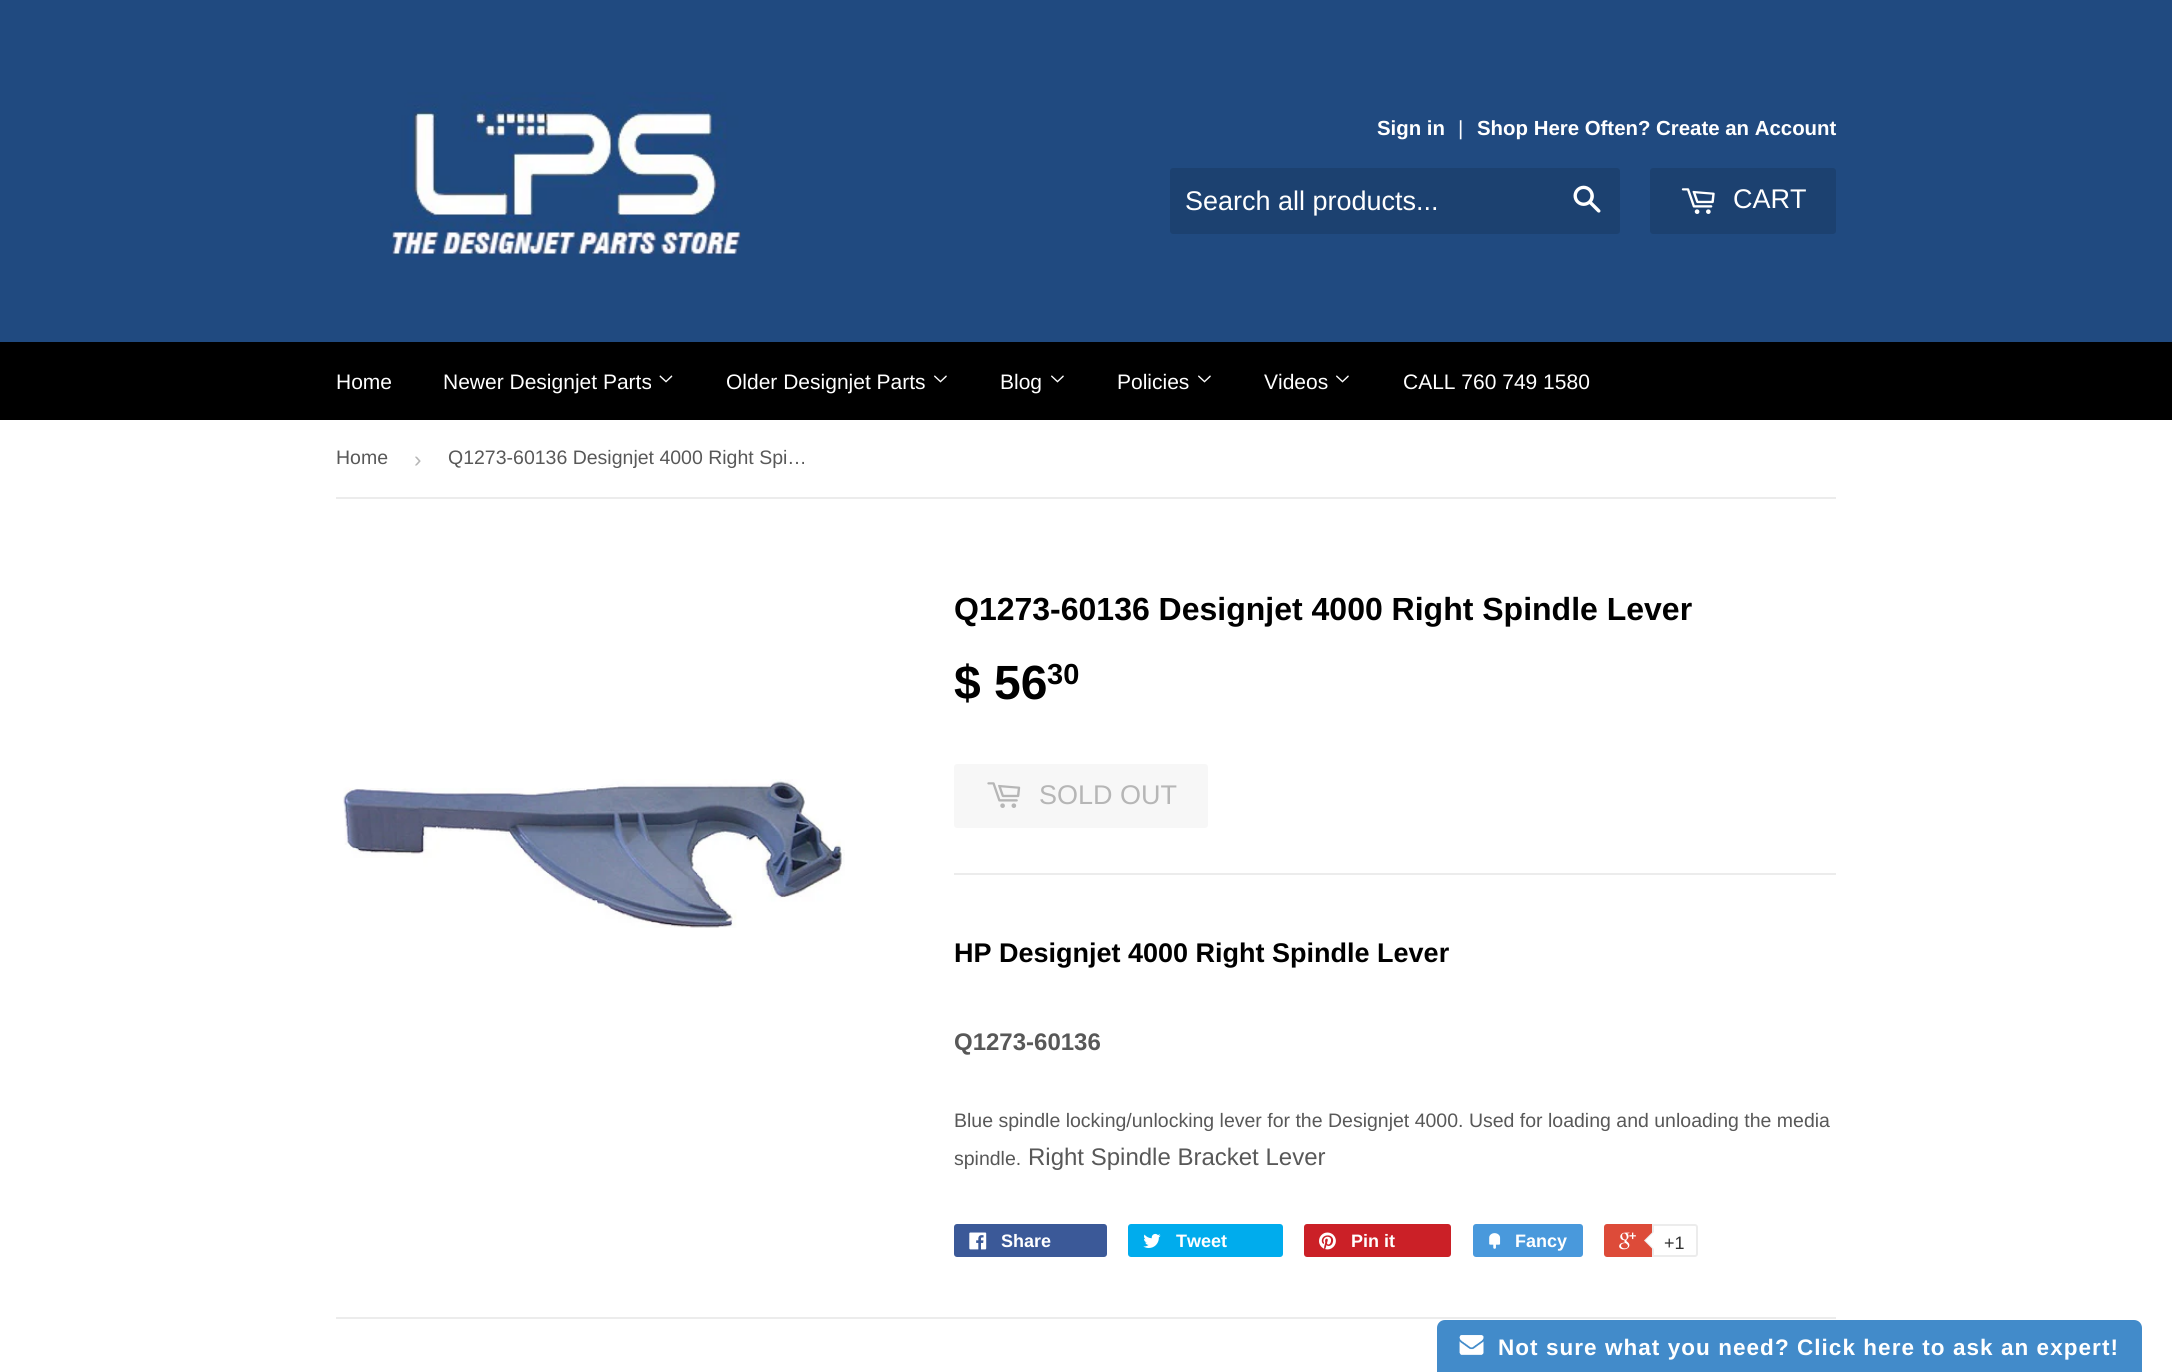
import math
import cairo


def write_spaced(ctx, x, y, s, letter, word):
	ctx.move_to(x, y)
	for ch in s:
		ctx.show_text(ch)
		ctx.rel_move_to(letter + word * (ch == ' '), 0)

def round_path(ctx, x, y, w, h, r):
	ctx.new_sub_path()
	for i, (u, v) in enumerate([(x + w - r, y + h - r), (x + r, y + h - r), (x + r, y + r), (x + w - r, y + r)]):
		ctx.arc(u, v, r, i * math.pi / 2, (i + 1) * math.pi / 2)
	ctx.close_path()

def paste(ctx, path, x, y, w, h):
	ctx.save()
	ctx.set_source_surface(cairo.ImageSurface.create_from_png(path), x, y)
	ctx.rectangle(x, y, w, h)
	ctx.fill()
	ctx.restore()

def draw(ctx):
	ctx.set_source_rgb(1, 1, 1)
	ctx.paint()
	ctx.set_source_rgb(0.125, 0.29, 0.502)
	ctx.rectangle(0, 0, 2172, 342)
	ctx.fill()
	paste(ctx, 'media/1.png', 390, 92, 351, 168)
	ctx.select_font_face('Liberation Sans', cairo.FONT_SLANT_NORMAL, cairo.FONT_WEIGHT_BOLD)
	ctx.set_font_size(20.4)
	ctx.set_source_rgb(1, 1, 1)
	ctx.move_to(1377, 135)
	ctx.show_text('Sign in')
	ctx.select_font_face('Liberation Sans')
	ctx.move_to(1458, 135)
	ctx.show_text('|')
	ctx.select_font_face('Liberation Sans', cairo.FONT_SLANT_NORMAL, cairo.FONT_WEIGHT_BOLD)
	ctx.move_to(1477, 135)
	ctx.show_text('Shop Here Often? Create an Account')
	ctx.set_source_rgb(0.11, 0.255, 0.439)
	round_path(ctx, 1170, 168, 450, 66, 3)
	ctx.fill()
	ctx.select_font_face('Liberation Sans')
	ctx.set_font_size(27)
	ctx.set_source_rgb(1, 1, 1)
	ctx.move_to(1185, 210)
	ctx.show_text('Search all products...')
	paste(ctx, 'media/2.png', 1573, 185, 28, 28)
	ctx.set_source_rgb(0.11, 0.255, 0.439)
	round_path(ctx, 1650, 168, 186, 66, 3)
	ctx.fill()
	paste(ctx, 'media/3.png', 1681, 188, 34, 26)
	ctx.set_source_rgb(1, 1, 1)
	ctx.move_to(1733, 208)
	ctx.show_text('CART')
	ctx.set_source_rgb(0, 0, 0)
	ctx.rectangle(0, 342, 2172, 78)
	ctx.fill()
	ctx.set_font_size(21)
	ctx.set_source_rgb(1, 1, 1)
	ctx.move_to(336, 389)
	ctx.show_text('Home')
	ctx.move_to(443, 389)
	ctx.show_text('Newer Designjet Parts')
	paste(ctx, 'media/4.png', 659, 375, 14, 8)
	ctx.move_to(726, 389)
	ctx.show_text('Older Designjet Parts')
	paste(ctx, 'media/5.png', 934, 375, 13, 8)
	ctx.move_to(1000, 389)
	ctx.show_text('Blog')
	paste(ctx, 'media/5.png', 1051, 375, 13, 8)
	ctx.move_to(1117, 389)
	ctx.show_text('Policies')
	paste(ctx, 'media/5.png', 1198, 375, 13, 8)
	ctx.move_to(1264, 389)
	ctx.show_text('Videos')
	paste(ctx, 'media/5.png', 1336, 375, 13, 8)
	ctx.move_to(1403, 389)
	ctx.show_text('CALL 760 749 1580')
	ctx.set_source_rgb(0.925, 0.925, 0.925)
	ctx.rectangle(336, 497, 1500, 2)
	ctx.fill()
	ctx.set_font_size(19.5)
	ctx.set_source_rgb(0.345, 0.345, 0.345)
	ctx.move_to(336, 464)
	ctx.show_text('Home')
	ctx.set_font_size(22.5)
	ctx.set_source_rgb(0.714, 0.714, 0.714)
	ctx.move_to(414, 467)
	ctx.show_text('›')
	ctx.set_font_size(19.5)
	ctx.set_source_rgb(0.345, 0.345, 0.345)
	ctx.move_to(448, 464)
	ctx.show_text('Q1273-60136 Designjet 4000 Right Spi…')
	paste(ctx, 'media/6.png', 343, 779, 502, 149)
	ctx.select_font_face('Liberation Sans', cairo.FONT_SLANT_NORMAL, cairo.FONT_WEIGHT_BOLD)
	ctx.set_font_size(32)
	ctx.set_source_rgb(0, 0, 0)
	ctx.move_to(954, 620)
	ctx.show_text('Q1273-60136 Designjet 4000 Right Spindle Lever')
	ctx.set_font_size(48)
	ctx.move_to(954, 699)
	ctx.show_text('$ 56')
	ctx.set_font_size(29)
	ctx.move_to(1047, 684)
	ctx.show_text('30')
	ctx.set_source_rgb(0.965, 0.965, 0.965)
	round_path(ctx, 954, 764, 254, 64, 3)
	ctx.fill()
	paste(ctx, 'media/7.png', 987, 782, 34, 26)
	ctx.select_font_face('Liberation Sans')
	ctx.set_font_size(27)
	ctx.set_source_rgb(0.714, 0.714, 0.714)
	ctx.move_to(1039, 804)
	ctx.show_text('SOLD OUT')
	ctx.set_source_rgb(0.925, 0.925, 0.925)
	ctx.rectangle(954, 873, 882, 2)
	ctx.fill()
	ctx.select_font_face('Liberation Sans', cairo.FONT_SLANT_NORMAL, cairo.FONT_WEIGHT_BOLD)
	ctx.set_source_rgb(0, 0, 0)
	ctx.move_to(954, 962)
	ctx.show_text('HP Designjet 4000 Right Spindle Lever')
	ctx.set_font_size(24)
	ctx.set_source_rgb(0.345, 0.345, 0.345)
	ctx.move_to(954, 1050)
	ctx.show_text('Q1273-60136')
	ctx.select_font_face('Liberation Sans')
	ctx.set_font_size(19.5)
	ctx.move_to(954, 1127)
	ctx.show_text('Blue spindle locking/unlocking lever for the Designjet 4000. Used for loading and unloading the media')
	ctx.move_to(954, 1165)
	ctx.show_text('spindle.')
	ctx.set_font_size(24)
	ctx.move_to(1028, 1165)
	ctx.show_text('Right Spindle Bracket Lever')
	ctx.set_source_rgb(0.231, 0.349, 0.596)
	round_path(ctx, 954, 1224, 153, 33, 3)
	ctx.fill()
	paste(ctx, 'media/8.png', 969, 1232, 18, 18)
	ctx.select_font_face('Liberation Sans', cairo.FONT_SLANT_NORMAL, cairo.FONT_WEIGHT_BOLD)
	ctx.set_font_size(18)
	ctx.set_source_rgb(1, 1, 1)
	ctx.move_to(1001, 1247)
	ctx.show_text('Share')
	ctx.set_source_rgb(0, 0.675, 0.929)
	round_path(ctx, 1128, 1224, 155, 33, 3)
	ctx.fill()
	paste(ctx, 'media/9.png', 1143, 1233, 18, 15)
	ctx.set_source_rgb(1, 1, 1)
	ctx.move_to(1176, 1247)
	ctx.show_text('Tweet')
	ctx.set_source_rgb(0.796, 0.125, 0.153)
	round_path(ctx, 1304, 1224, 147, 33, 3)
	ctx.fill()
	paste(ctx, 'media/10.png', 1319, 1232, 17, 18)
	ctx.set_source_rgb(1, 1, 1)
	ctx.move_to(1351, 1247)
	ctx.show_text('Pin it')
	ctx.set_source_rgb(0.286, 0.6, 0.863)
	round_path(ctx, 1473, 1224, 110, 33, 3)
	ctx.fill()
	paste(ctx, 'media/11.png', 1489, 1233, 12, 16)
	ctx.set_source_rgb(1, 1, 1)
	ctx.move_to(1515, 1247)
	ctx.show_text('Fancy')
	ctx.set_source_rgb(0.867, 0.294, 0.224)
	round_path(ctx, 1604, 1224, 91, 33, 3)
	ctx.fill()
	paste(ctx, 'media/12.png', 1619, 1232, 17, 18)
	ctx.set_source_rgb(1, 1, 1)
	ctx.new_path()
	ctx.move_to(1653, 1225)
	ctx.line_to(1695, 1225)
	ctx.curve_to(1696, 1225, 1697, 1226, 1697, 1227)
	ctx.line_to(1697, 1254)
	ctx.curve_to(1697, 1255, 1696, 1256, 1695, 1256)
	ctx.line_to(1653, 1256)
	ctx.close_path()
	ctx.fill_preserve()
	ctx.set_source_rgb(0.925, 0.925, 0.925)
	ctx.stroke()
	ctx.new_path()
	ctx.move_to(1653, 1231.5)
	ctx.line_to(1653, 1249.5)
	ctx.line_to(1644, 1240.5)
	ctx.close_path()
	ctx.fill()
	ctx.set_source_rgb(1, 1, 1)
	ctx.new_path()
	ctx.move_to(1654.5, 1231.5)
	ctx.line_to(1654.5, 1249.5)
	ctx.line_to(1645.5, 1240.5)
	ctx.close_path()
	ctx.fill()
	ctx.select_font_face('Liberation Sans')
	ctx.set_source_rgb(0.2, 0.2, 0.2)
	ctx.move_to(1664, 1249)
	ctx.show_text('+1')
	ctx.set_source_rgb(0.925, 0.925, 0.925)
	ctx.rectangle(336, 1317, 1500, 2)
	ctx.fill()
	ctx.set_source_rgb(0.259, 0.545, 0.792)
	ctx.new_path()
	ctx.move_to(1445, 1320)
	ctx.line_to(2134, 1320)
	ctx.curve_to(2138.5, 1320, 2142, 1323.5, 2142, 1328)
	ctx.line_to(2142, 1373)
	ctx.line_to(1437, 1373)
	ctx.line_to(1437, 1328)
	ctx.curve_to(1437, 1323.5, 1440.5, 1320, 1445, 1320)
	ctx.close_path()
	ctx.fill()
	paste(ctx, 'media/13.png', 1459, 1335, 25, 20)
	ctx.select_font_face('Liberation Sans', cairo.FONT_SLANT_NORMAL, cairo.FONT_WEIGHT_BOLD)
	ctx.set_font_size(22.5)
	ctx.set_source_rgb(1, 1, 1)
	write_spaced(ctx, 1498, 1355, 'Not sure what you need? Click here to ask an expert!', 1.05, 0)


surface = cairo.ImageSurface(cairo.FORMAT_RGB24, 2172, 1372)
ctx = cairo.Context(surface)
options = cairo.FontOptions()
options.set_hint_metrics(cairo.HINT_METRICS_OFF)
options.set_hint_style(cairo.HINT_STYLE_NONE)
ctx.set_font_options(options)
ctx.set_miter_limit(4)
draw(ctx)
surface.write_to_png('image.png')
